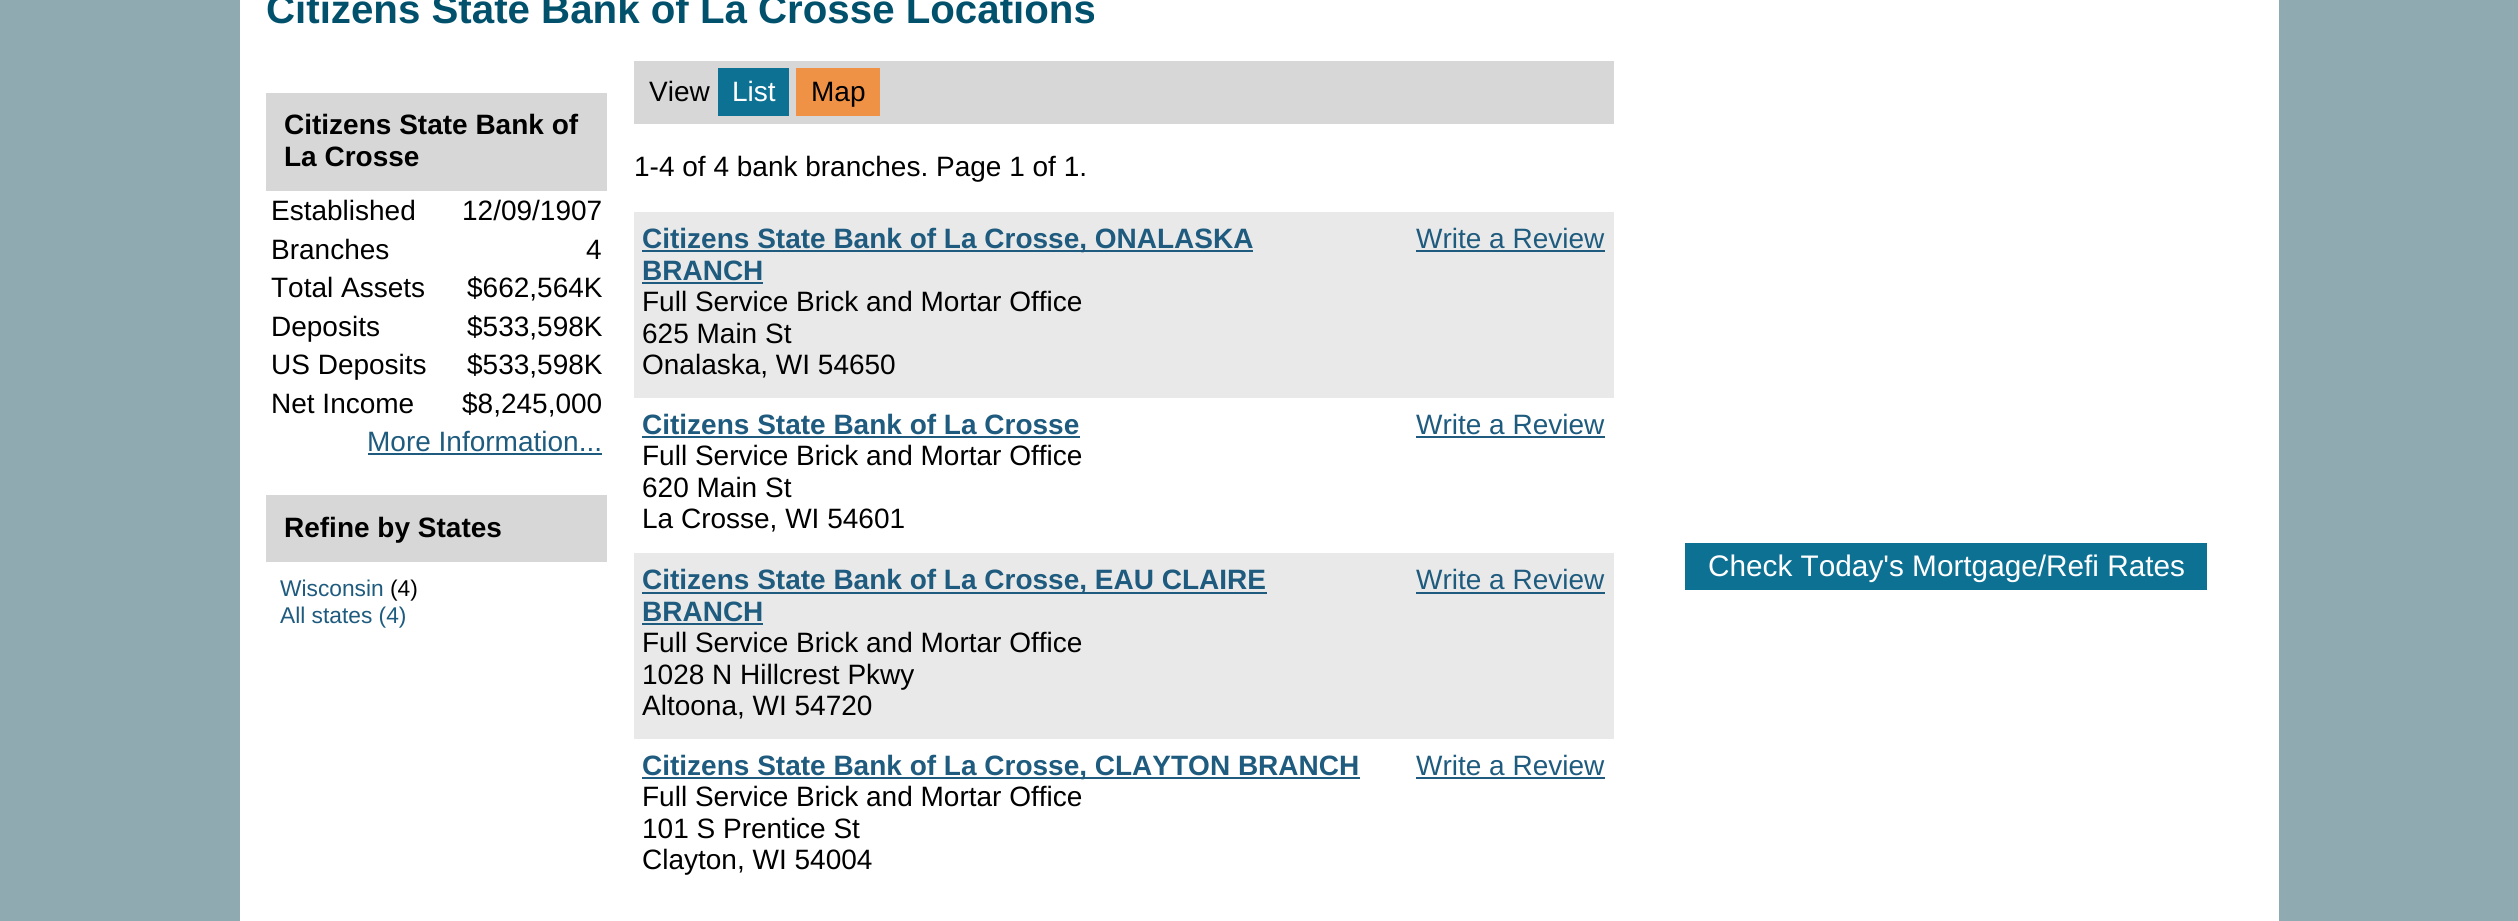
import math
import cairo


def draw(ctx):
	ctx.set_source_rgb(0.565, 0.667, 0.698)
	ctx.paint()
	ctx.set_source_rgb(1, 1, 1)
	ctx.rectangle(240, 0, 2039, 921)
	ctx.fill()
	ctx.select_font_face('Liberation Sans', cairo.FONT_SLANT_NORMAL, cairo.FONT_WEIGHT_BOLD)
	ctx.set_font_size(40.25)
	ctx.set_source_rgb(0.004, 0.318, 0.427)
	ctx.move_to(266, 23)
	ctx.show_text('Citizens State Bank of La Crosse Locations')
	ctx.set_source_rgb(0.843, 0.843, 0.843)
	ctx.rectangle(266, 93, 341, 98)
	ctx.fill()
	ctx.set_font_size(28)
	ctx.set_source_rgb(0, 0, 0)
	ctx.move_to(284, 134)
	ctx.show_text('Citizens State Bank of')
	ctx.move_to(284, 166)
	ctx.show_text('La Crosse')
	ctx.select_font_face('Liberation Sans')
	for x, y, s in [
		(271, 220, 'Established'),
		(462, 220, '12/09/1907'),
		(271, 259, 'Branches'),
		(586, 259, '4'),
		(271, 297, 'Total Assets'),
		(467, 297, '$662,564K'),
		(271, 336, 'Deposits'),
		(467, 336, '$533,598K'),
		(271, 374, 'US Deposits'),
		(467, 374, '$533,598K'),
		(271, 413, 'Net Income'),
		(462, 413, '$8,245,000'),
	]:
		ctx.move_to(x, y)
		ctx.show_text(s)
	ctx.set_source_rgb(0.118, 0.357, 0.494)
	ctx.move_to(367, 451)
	ctx.show_text('More Information...')
	ctx.rectangle(368, 453, 234, 2)
	ctx.fill()
	ctx.set_source_rgb(0.843, 0.843, 0.843)
	ctx.rectangle(266, 495, 341, 67)
	ctx.fill()
	ctx.select_font_face('Liberation Sans', cairo.FONT_SLANT_NORMAL, cairo.FONT_WEIGHT_BOLD)
	ctx.set_source_rgb(0, 0, 0)
	ctx.move_to(284, 537)
	ctx.show_text('Refine by States')
	ctx.select_font_face('Liberation Sans')
	ctx.set_font_size(22.75)
	ctx.set_source_rgb(0.118, 0.357, 0.494)
	ctx.move_to(280, 596)
	ctx.show_text('Wisconsin')
	ctx.set_source_rgb(0, 0, 0)
	ctx.move_to(390, 596)
	ctx.show_text('(4)')
	ctx.set_source_rgb(0.118, 0.357, 0.494)
	ctx.move_to(280, 623)
	ctx.show_text('All states (4)')
	ctx.set_source_rgb(0.843, 0.843, 0.843)
	ctx.rectangle(634, 61, 980, 63)
	ctx.fill()
	ctx.set_font_size(28)
	ctx.set_source_rgb(0, 0, 0)
	ctx.move_to(649, 101)
	ctx.show_text('View')
	ctx.set_source_rgb(0.051, 0.443, 0.58)
	ctx.rectangle(718, 68, 71, 48)
	ctx.fill()
	ctx.set_source_rgb(1, 1, 1)
	ctx.move_to(732, 101)
	ctx.show_text('List')
	ctx.set_source_rgb(0.941, 0.573, 0.271)
	ctx.rectangle(796, 68, 84, 48)
	ctx.fill()
	ctx.set_source_rgb(0, 0, 0)
	ctx.move_to(811, 101)
	ctx.show_text('Map')
	ctx.move_to(634, 176)
	ctx.show_text('1-4 of 4 bank branches. Page 1 of 1.')
	ctx.set_source_rgb(0.914, 0.914, 0.914)
	ctx.rectangle(634, 212, 980, 186)
	ctx.fill()
	ctx.set_source_rgb(0.118, 0.357, 0.494)
	ctx.rectangle(642, 250, 611, 2)
	ctx.fill()
	ctx.select_font_face('Liberation Sans', cairo.FONT_SLANT_NORMAL, cairo.FONT_WEIGHT_BOLD)
	ctx.move_to(642, 248)
	ctx.show_text('Citizens State Bank of La Crosse, ONALASKA')
	ctx.select_font_face('Liberation Sans')
	ctx.move_to(1416, 248)
	ctx.show_text('Write a Review')
	ctx.rectangle(1416, 250, 189, 2)
	ctx.fill()
	ctx.select_font_face('Liberation Sans', cairo.FONT_SLANT_NORMAL, cairo.FONT_WEIGHT_BOLD)
	ctx.move_to(642, 280)
	ctx.show_text('BRANCH')
	ctx.rectangle(642, 282, 121, 2)
	ctx.fill()
	ctx.select_font_face('Liberation Sans')
	ctx.set_source_rgb(0, 0, 0)
	for x, y, s in [
		(642, 311, 'Full Service Brick and Mortar Office'),
		(642, 343, '625 Main St'),
		(642, 374, 'Onalaska, WI 54650'),
	]:
		ctx.move_to(x, y)
		ctx.show_text(s)
	ctx.select_font_face('Liberation Sans', cairo.FONT_SLANT_NORMAL, cairo.FONT_WEIGHT_BOLD)
	ctx.set_source_rgb(0.118, 0.357, 0.494)
	ctx.move_to(642, 434)
	ctx.show_text('Citizens State Bank of La Crosse')
	ctx.rectangle(642, 436, 438, 2)
	ctx.fill()
	ctx.select_font_face('Liberation Sans')
	ctx.move_to(1416, 434)
	ctx.show_text('Write a Review')
	ctx.rectangle(1416, 436, 189, 2)
	ctx.fill()
	ctx.set_source_rgb(0, 0, 0)
	for x, y, s in [
		(642, 465, 'Full Service Brick and Mortar Office'),
		(642, 497, '620 Main St'),
		(642, 528, 'La Crosse, WI 54601'),
	]:
		ctx.move_to(x, y)
		ctx.show_text(s)
	ctx.set_source_rgb(0.914, 0.914, 0.914)
	ctx.rectangle(634, 553, 980, 186)
	ctx.fill()
	ctx.set_source_rgb(0.118, 0.357, 0.494)
	ctx.rectangle(642, 592, 625, 2)
	ctx.fill()
	ctx.select_font_face('Liberation Sans', cairo.FONT_SLANT_NORMAL, cairo.FONT_WEIGHT_BOLD)
	ctx.move_to(642, 589)
	ctx.show_text('Citizens State Bank of La Crosse, EAU CLAIRE')
	ctx.select_font_face('Liberation Sans')
	ctx.move_to(1416, 589)
	ctx.show_text('Write a Review')
	ctx.rectangle(1416, 592, 189, 2)
	ctx.fill()
	ctx.select_font_face('Liberation Sans', cairo.FONT_SLANT_NORMAL, cairo.FONT_WEIGHT_BOLD)
	ctx.move_to(642, 621)
	ctx.show_text('BRANCH')
	ctx.rectangle(642, 623, 121, 2)
	ctx.fill()
	ctx.select_font_face('Liberation Sans')
	ctx.set_source_rgb(0, 0, 0)
	for x, y, s in [
		(642, 652, 'Full Service Brick and Mortar Office'),
		(642, 684, '1028 N Hillcrest Pkwy'),
		(642, 715, 'Altoona, WI 54720'),
	]:
		ctx.move_to(x, y)
		ctx.show_text(s)
	ctx.set_source_rgb(0.118, 0.357, 0.494)
	ctx.rectangle(642, 777, 718, 2)
	ctx.fill()
	ctx.select_font_face('Liberation Sans', cairo.FONT_SLANT_NORMAL, cairo.FONT_WEIGHT_BOLD)
	ctx.move_to(642, 775)
	ctx.show_text('Citizens State Bank of La Crosse, CLAYTON BRANCH')
	ctx.select_font_face('Liberation Sans')
	ctx.move_to(1416, 775)
	ctx.show_text('Write a Review')
	ctx.rectangle(1416, 777, 189, 2)
	ctx.fill()
	ctx.set_source_rgb(0, 0, 0)
	for x, y, s in [
		(642, 806, 'Full Service Brick and Mortar Office'),
		(642, 838, '101 S Prentice St'),
		(642, 869, 'Clayton, WI 54004'),
	]:
		ctx.move_to(x, y)
		ctx.show_text(s)
	ctx.set_source_rgb(0.051, 0.443, 0.58)
	ctx.rectangle(1685, 543, 522, 47)
	ctx.fill()
	ctx.set_font_size(29.75)
	ctx.set_source_rgb(1, 1, 1)
	ctx.move_to(1708, 576)
	ctx.show_text('Check Today\'s Mortgage/Refi Rates')


surface = cairo.ImageSurface(cairo.FORMAT_RGB24, 2518, 921)
ctx = cairo.Context(surface)
options = cairo.FontOptions()
options.set_hint_metrics(cairo.HINT_METRICS_OFF)
options.set_hint_style(cairo.HINT_STYLE_NONE)
ctx.set_font_options(options)
ctx.set_miter_limit(4)
draw(ctx)
surface.write_to_png('image.png')
